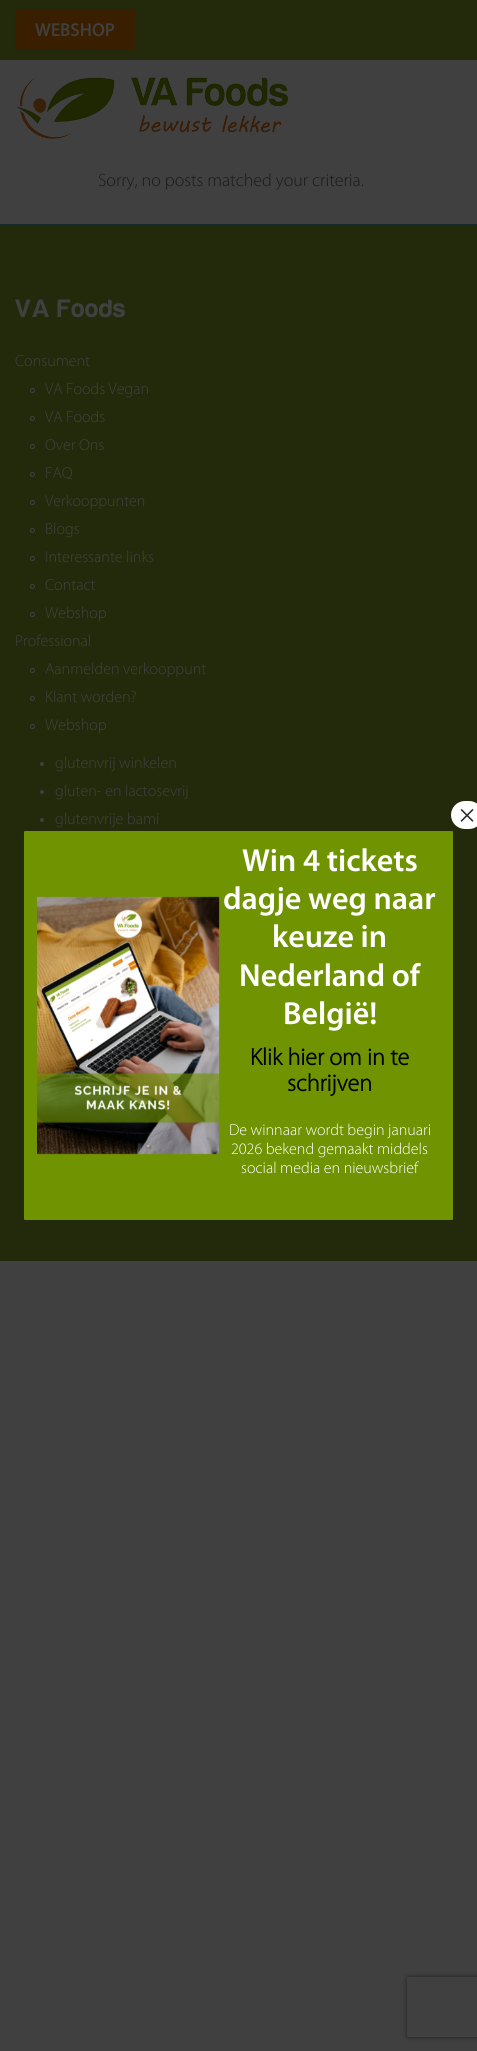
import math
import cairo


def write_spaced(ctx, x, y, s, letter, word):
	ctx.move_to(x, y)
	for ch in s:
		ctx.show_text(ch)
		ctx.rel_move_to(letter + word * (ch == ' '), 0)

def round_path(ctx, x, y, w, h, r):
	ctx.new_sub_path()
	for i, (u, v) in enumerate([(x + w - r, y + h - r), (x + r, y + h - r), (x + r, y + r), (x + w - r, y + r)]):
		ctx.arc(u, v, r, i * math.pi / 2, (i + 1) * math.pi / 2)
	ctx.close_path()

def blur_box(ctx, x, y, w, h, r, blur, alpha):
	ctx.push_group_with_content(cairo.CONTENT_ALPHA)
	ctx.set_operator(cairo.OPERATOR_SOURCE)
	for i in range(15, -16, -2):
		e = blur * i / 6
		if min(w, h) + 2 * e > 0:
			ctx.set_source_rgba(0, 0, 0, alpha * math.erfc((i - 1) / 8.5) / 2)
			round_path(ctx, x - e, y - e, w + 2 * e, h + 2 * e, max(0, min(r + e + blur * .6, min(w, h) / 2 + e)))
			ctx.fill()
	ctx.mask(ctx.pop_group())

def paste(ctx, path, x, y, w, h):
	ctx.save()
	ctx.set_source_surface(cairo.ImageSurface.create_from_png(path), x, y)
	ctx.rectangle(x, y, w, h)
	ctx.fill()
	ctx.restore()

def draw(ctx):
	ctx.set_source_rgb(0.251, 0.251, 0.251)
	ctx.paint()
	ctx.set_source_rgb(0.137, 0.165, 0.043)
	ctx.rectangle(0, 0, 477, 60)
	ctx.fill()
	ctx.set_source_rgb(0.224, 0.122, 0)
	ctx.rectangle(15, 10, 120, 40)
	ctx.fill()
	ctx.select_font_face('Myriad', cairo.FONT_SLANT_NORMAL, cairo.FONT_WEIGHT_BOLD)
	ctx.set_font_size(18)
	ctx.set_source_rgb(0.251, 0.251, 0.251)
	write_spaced(ctx, 35, 36, 'WEBSHOP', 0.5, 0)
	paste(ctx, 'media/1.png', 16, 77, 272, 63)
	ctx.select_font_face('Myriad Light')
	ctx.set_source_rgb(0.102, 0.102, 0.102)
	ctx.move_to(98, 186)
	ctx.show_text('Sorry, no posts matched your criteria.')
	ctx.set_source_rgb(0.137, 0.165, 0.043)
	ctx.rectangle(0, 225, 477, 1036)
	ctx.fill()
	ctx.set_source_rgb(0.094, 0.165, 0.165)
	ctx.rectangle(0, 224, 477, 1)
	ctx.fill()
	ctx.select_font_face('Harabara', cairo.FONT_SLANT_NORMAL, cairo.FONT_WEIGHT_BOLD)
	ctx.set_font_size(26)
	ctx.set_source_rgb(0.251, 0.251, 0.251)
	write_spaced(ctx, 15, 317, 'VA Foods', 1, 0)
	ctx.select_font_face('Myriad Light')
	ctx.set_font_size(16)
	ctx.move_to(15, 366)
	ctx.show_text('Consument')
	ctx.new_path()
	ctx.arc(32.5, 390.5, 2, 0, 2 * math.pi)
	ctx.set_line_width(1)
	ctx.stroke()
	ctx.move_to(45, 394)
	ctx.show_text('VA Foods Vegan')
	ctx.new_path()
	ctx.arc(32.5, 418.5, 2, 0, 2 * math.pi)
	ctx.stroke()
	ctx.move_to(45, 422)
	ctx.show_text('VA Foods')
	ctx.new_path()
	ctx.arc(32.5, 446.5, 2, 0, 2 * math.pi)
	ctx.stroke()
	ctx.move_to(45, 450)
	ctx.show_text('Over Ons')
	ctx.new_path()
	ctx.arc(32.5, 474.5, 2, 0, 2 * math.pi)
	ctx.stroke()
	ctx.move_to(45, 478)
	ctx.show_text('FAQ')
	ctx.new_path()
	ctx.arc(32.5, 502.5, 2, 0, 2 * math.pi)
	ctx.stroke()
	ctx.move_to(45, 506)
	ctx.show_text('Verkooppunten')
	ctx.new_path()
	ctx.arc(32.5, 530.5, 2, 0, 2 * math.pi)
	ctx.stroke()
	ctx.move_to(45, 534)
	ctx.show_text('Blogs')
	ctx.new_path()
	ctx.arc(32.5, 558.5, 2, 0, 2 * math.pi)
	ctx.stroke()
	ctx.move_to(45, 562)
	ctx.show_text('Interessante links')
	ctx.new_path()
	ctx.arc(32.5, 586.5, 2, 0, 2 * math.pi)
	ctx.stroke()
	ctx.move_to(45, 590)
	ctx.show_text('Contact')
	ctx.new_path()
	ctx.arc(32.5, 614.5, 2, 0, 2 * math.pi)
	ctx.stroke()
	ctx.move_to(45, 618)
	ctx.show_text('Webshop')
	ctx.move_to(15, 646)
	ctx.show_text('Professional')
	ctx.new_path()
	ctx.arc(32.5, 670.5, 2, 0, 2 * math.pi)
	ctx.stroke()
	ctx.move_to(45, 674)
	ctx.show_text('Aanmelden verkooppunt')
	ctx.new_path()
	ctx.arc(32.5, 698.5, 2, 0, 2 * math.pi)
	ctx.stroke()
	ctx.move_to(45, 702)
	ctx.show_text('Klant worden?')
	ctx.new_path()
	ctx.arc(32.5, 726.5, 2, 0, 2 * math.pi)
	ctx.stroke()
	ctx.move_to(45, 730)
	ctx.show_text('Webshop')
	ctx.new_path()
	ctx.arc(42, 764, 2, 0, 2 * math.pi)
	ctx.fill()
	ctx.move_to(55, 768)
	ctx.show_text('glutenvrij winkelen')
	ctx.new_path()
	ctx.arc(42, 792, 2, 0, 2 * math.pi)
	ctx.fill()
	ctx.move_to(55, 796)
	ctx.show_text('gluten- en lactosevrij')
	ctx.new_path()
	ctx.arc(42, 820, 2, 0, 2 * math.pi)
	ctx.fill()
	ctx.move_to(55, 824)
	ctx.show_text('glutenvrije bami')
	ctx.set_source_rgb(0.439, 0.576, 0.008)
	round_path(ctx, 24, 831, 429, 389, 1)
	ctx.fill()
	ctx.set_source_rgb(1, 1, 1)
	round_path(ctx, 451, 801, 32, 28, 14)
	ctx.fill()
	ctx.select_font_face('Liberation Serif')
	ctx.set_font_size(32)
	ctx.set_source_rgb(0.176, 0.176, 0.176)
	ctx.move_to(458, 826)
	ctx.show_text('×')
	paste(ctx, 'media/2.png', 37, 896, 183, 259)
	ctx.select_font_face('Myriad SemiBold')
	ctx.set_source_rgb(1, 1, 1)
	for x, y, s in [
		(242, 871, 'Win 4 tickets'),
		(223, 909, 'dagje weg naar'),
		(272, 947, 'keuze in'),
		(239, 986, 'Nederland of'),
		(283, 1024, 'België!'),
	]:
		ctx.move_to(x, y)
		ctx.show_text(s)
	ctx.select_font_face('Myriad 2', cairo.FONT_SLANT_NORMAL, cairo.FONT_WEIGHT_BOLD)
	ctx.set_font_size(24)
	ctx.set_source_rgb(0, 0, 0)
	ctx.move_to(250, 1065)
	ctx.show_text('Klik hier om in te')
	ctx.move_to(287, 1091)
	ctx.show_text('schrijven')
	ctx.select_font_face('Myriad Light')
	ctx.set_font_size(16)
	ctx.set_source_rgb(1, 1, 1)
	for x, y, s in [
		(229, 1135, 'De winnaar wordt begin januari'),
		(231, 1154, '2026 bekend gemaakt middels'),
		(241, 1173, 'social media en nieuwsbrief'),
	]:
		ctx.move_to(x, y)
		ctx.show_text(s)
	ctx.save()
	ctx.set_fill_rule(cairo.FILL_RULE_EVEN_ODD)
	ctx.new_path()
	ctx.move_to(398, 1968)
	ctx.line_to(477, 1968)
	ctx.line_to(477, 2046)
	ctx.line_to(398, 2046)
	ctx.close_path()
	ctx.move_to(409, 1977)
	ctx.line_to(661, 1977)
	ctx.curve_to(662, 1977, 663, 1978, 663, 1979)
	ctx.line_to(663, 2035)
	ctx.curve_to(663, 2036, 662, 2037, 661, 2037)
	ctx.line_to(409, 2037)
	ctx.curve_to(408, 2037, 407, 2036, 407, 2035)
	ctx.line_to(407, 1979)
	ctx.curve_to(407, 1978, 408, 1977, 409, 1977)
	ctx.close_path()
	ctx.clip()
	ctx.set_source_rgb(0.125, 0.125, 0.125)
	blur_box(ctx, 407, 1977, 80, 60, 2, 2.5, 1)
	ctx.restore()


surface = cairo.ImageSurface(cairo.FORMAT_RGB24, 477, 2051)
ctx = cairo.Context(surface)
options = cairo.FontOptions()
options.set_hint_metrics(cairo.HINT_METRICS_OFF)
options.set_hint_style(cairo.HINT_STYLE_NONE)
ctx.set_font_options(options)
ctx.set_miter_limit(4)
draw(ctx)
surface.write_to_png('image.png')
